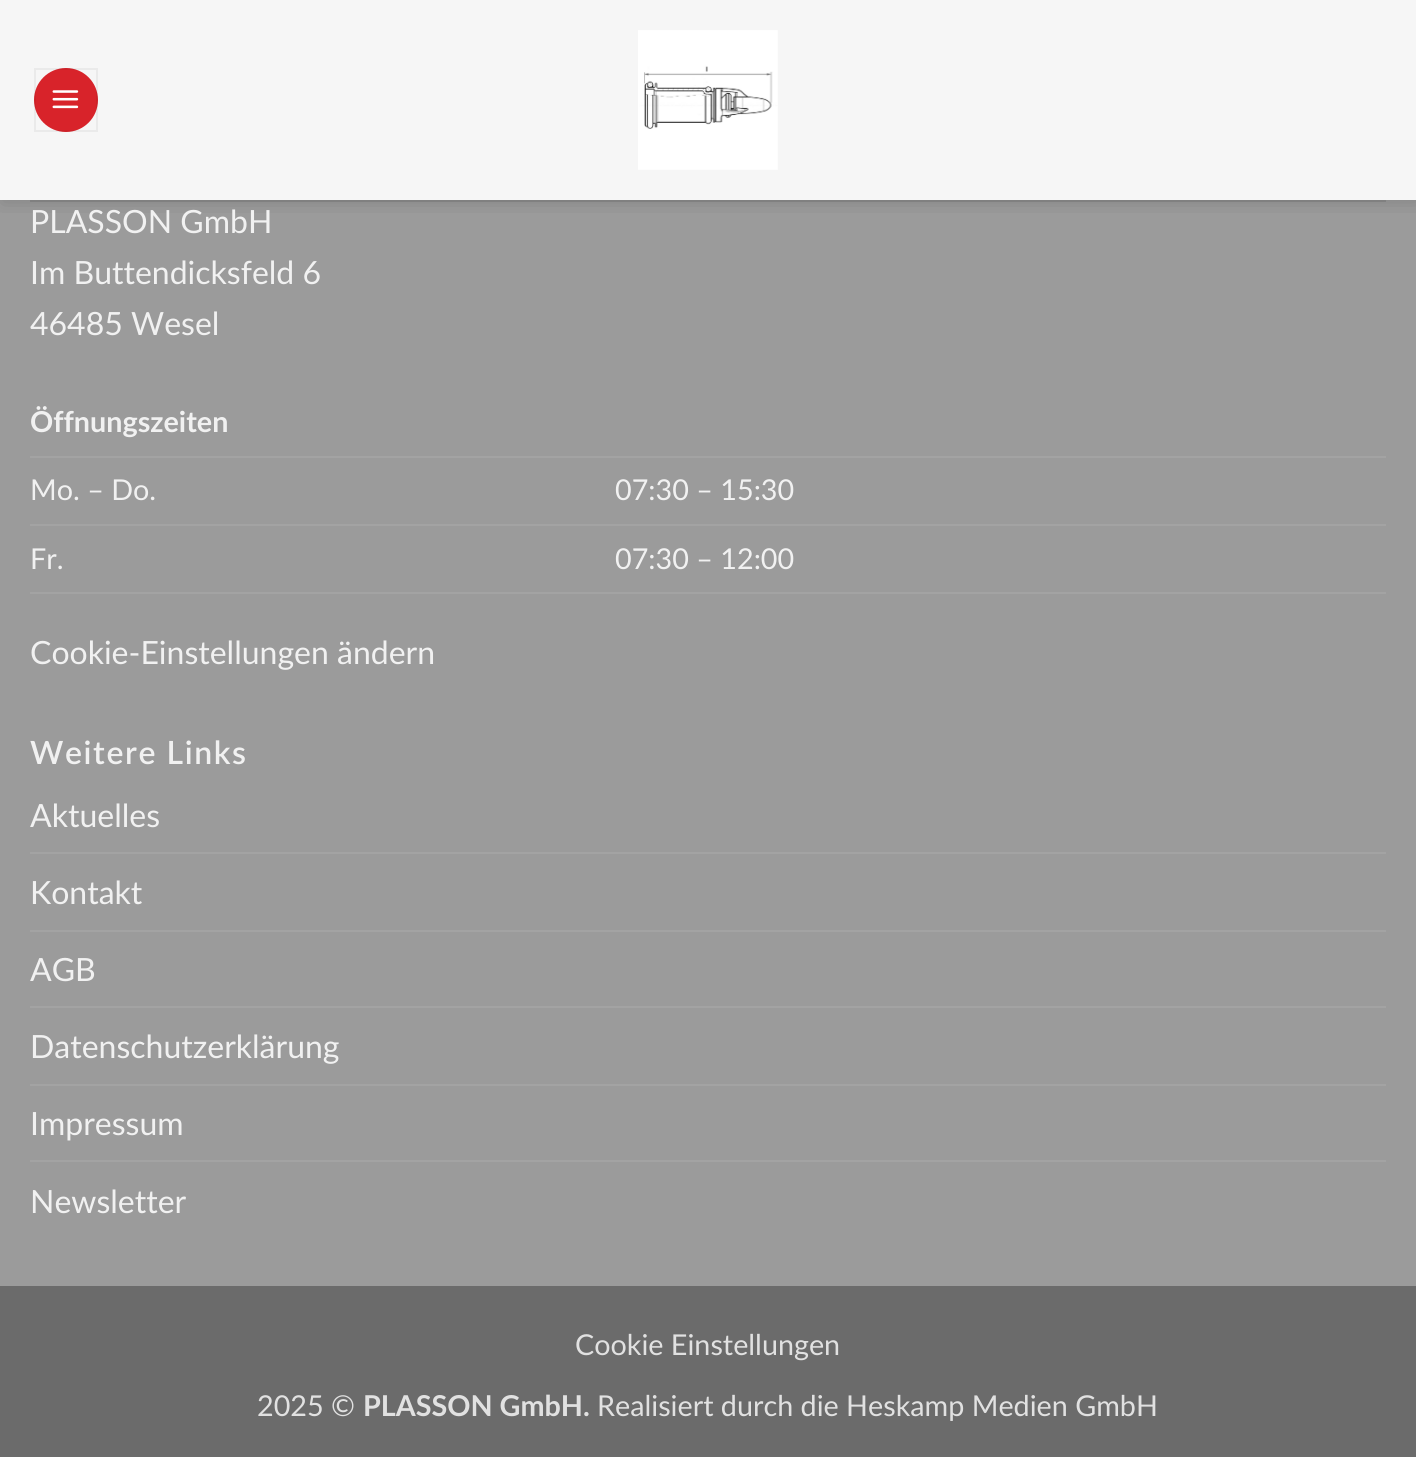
import math
import cairo


def write_spaced(ctx, x, y, s, letter, word):
	ctx.move_to(x, y)
	for ch in s:
		ctx.show_text(ch)
		ctx.rel_move_to(letter + word * (ch == ' '), 0)

def round_path(ctx, x, y, w, h, r):
	ctx.new_sub_path()
	for i, (u, v) in enumerate([(x + w - r, y + h - r), (x + r, y + h - r), (x + r, y + r), (x + w - r, y + r)]):
		ctx.arc(u, v, r, i * math.pi / 2, (i + 1) * math.pi / 2)
	ctx.close_path()

def blur_box(ctx, x, y, w, h, r, blur, alpha):
	ctx.push_group_with_content(cairo.CONTENT_ALPHA)
	ctx.set_operator(cairo.OPERATOR_SOURCE)
	for i in range(15, -16, -2):
		e = blur * i / 6
		if min(w, h) + 2 * e > 0:
			ctx.set_source_rgba(0, 0, 0, alpha * math.erfc((i - 1) / 8.5) / 2)
			round_path(ctx, x - e, y - e, w + 2 * e, h + 2 * e, max(0, min(r + e + blur * .6, min(w, h) / 2 + e)))
			ctx.fill()
	ctx.mask(ctx.pop_group())

def paste(ctx, path, x, y, w, h):
	ctx.save()
	ctx.set_source_surface(cairo.ImageSurface.create_from_png(path), x, y)
	ctx.rectangle(x, y, w, h)
	ctx.fill()
	ctx.restore()

def draw(ctx):
	ctx.set_source_rgb(0.608, 0.608, 0.608)
	ctx.paint()
	ctx.set_source_rgb(0.961, 0.961, 0.961)
	ctx.rectangle(0, 0, 1416, 200)
	ctx.fill()
	ctx.save()
	ctx.rectangle(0, 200, 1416, 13)
	ctx.clip()
	ctx.set_source_rgb(0, 0, 0)
	blur_box(ctx, 2, 2, 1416, 200, 0, 10, 0.15)
	ctx.restore()
	ctx.set_source_rgb(0.847, 0.137, 0.165)
	ctx.arc(66, 100, 32, 0, 2 * math.pi)
	ctx.fill()
	ctx.rectangle(35, 69, 62, 62)
	ctx.set_source_rgba(0, 0, 0, 0.05)
	ctx.stroke()
	paste(ctx, 'media/1.png', 52, 90, 27, 19)
	paste(ctx, 'media/2.png', 638, 30, 140, 140)
	ctx.set_source_rgb(0.502, 0.502, 0.502)
	ctx.rectangle(30, 200, 1356, 2)
	ctx.fill()
	ctx.select_font_face('Lato')
	ctx.set_font_size(32)
	ctx.set_source_rgb(0.945, 0.945, 0.945)
	for x, y, s in [
		(30, 233, 'PLASSON GmbH'),
		(30, 284, 'Im Buttendicksfeld 6'),
		(30, 335, '46485 Wesel'),
	]:
		ctx.move_to(x, y)
		ctx.show_text(s)
	ctx.set_source_rgb(0.639, 0.639, 0.639)
	ctx.rectangle(30, 456, 1356, 2)
	ctx.fill()
	ctx.select_font_face('Lato', cairo.FONT_SLANT_NORMAL, cairo.FONT_WEIGHT_BOLD)
	ctx.set_font_size(28.75)
	ctx.set_source_rgb(0.945, 0.945, 0.945)
	ctx.move_to(30, 432)
	ctx.show_text('Öffnungszeiten')
	ctx.set_source_rgb(0.639, 0.639, 0.639)
	ctx.rectangle(30, 524, 1356, 2)
	ctx.fill()
	ctx.select_font_face('Lato')
	ctx.set_source_rgb(0.945, 0.945, 0.945)
	ctx.move_to(30, 500)
	ctx.show_text('Mo. – Do.')
	ctx.move_to(615, 500)
	ctx.show_text('07:30 – 15:30')
	ctx.set_source_rgb(0.639, 0.639, 0.639)
	ctx.rectangle(30, 592, 1356, 2)
	ctx.fill()
	ctx.set_source_rgb(0.945, 0.945, 0.945)
	ctx.move_to(30, 569)
	ctx.show_text('Fr.')
	ctx.move_to(615, 569)
	ctx.show_text('07:30 – 12:00')
	ctx.set_font_size(32)
	ctx.move_to(30, 664)
	ctx.show_text('Cookie-Einstellungen ändern')
	ctx.select_font_face('Lato SemiBold')
	write_spaced(ctx, 30, 764, 'Weitere Links', 1.6, 0)
	ctx.select_font_face('Lato')
	ctx.move_to(30, 827)
	ctx.show_text('Aktuelles')
	ctx.set_source_rgb(0.639, 0.639, 0.639)
	ctx.rectangle(30, 852, 1356, 2)
	ctx.fill()
	ctx.set_source_rgb(0.945, 0.945, 0.945)
	ctx.move_to(30, 904)
	ctx.show_text('Kontakt')
	ctx.set_source_rgb(0.639, 0.639, 0.639)
	ctx.rectangle(30, 930, 1356, 2)
	ctx.fill()
	ctx.set_source_rgb(0.945, 0.945, 0.945)
	ctx.move_to(30, 981)
	ctx.show_text('AGB')
	ctx.set_source_rgb(0.639, 0.639, 0.639)
	ctx.rectangle(30, 1006, 1356, 2)
	ctx.fill()
	ctx.set_source_rgb(0.945, 0.945, 0.945)
	ctx.move_to(30, 1058)
	ctx.show_text('Datenschutzerklärung')
	ctx.set_source_rgb(0.639, 0.639, 0.639)
	ctx.rectangle(30, 1084, 1356, 2)
	ctx.fill()
	ctx.set_source_rgb(0.945, 0.945, 0.945)
	ctx.move_to(30, 1135)
	ctx.show_text('Impressum')
	ctx.set_source_rgb(0.639, 0.639, 0.639)
	ctx.rectangle(30, 1160, 1356, 2)
	ctx.fill()
	ctx.set_source_rgb(0.945, 0.945, 0.945)
	ctx.move_to(30, 1213)
	ctx.show_text('Newsletter')
	ctx.set_source_rgb(0.42, 0.42, 0.42)
	ctx.rectangle(0, 1286, 1416, 171)
	ctx.fill()
	ctx.set_font_size(28.75)
	ctx.set_source_rgb(0.882, 0.882, 0.882)
	ctx.move_to(575, 1355)
	ctx.show_text('Cookie Einstellungen')
	ctx.move_to(257, 1416)
	ctx.show_text('2025 ©')
	ctx.select_font_face('Lato', cairo.FONT_SLANT_NORMAL, cairo.FONT_WEIGHT_BOLD)
	ctx.move_to(363, 1416)
	ctx.show_text('PLASSON GmbH.')
	ctx.select_font_face('Lato')
	ctx.move_to(597, 1416)
	ctx.show_text('Realisiert durch die Heskamp Medien GmbH')


surface = cairo.ImageSurface(cairo.FORMAT_RGB24, 1416, 1457)
ctx = cairo.Context(surface)
options = cairo.FontOptions()
options.set_hint_metrics(cairo.HINT_METRICS_OFF)
options.set_hint_style(cairo.HINT_STYLE_NONE)
ctx.set_font_options(options)
ctx.set_miter_limit(4)
draw(ctx)
surface.write_to_png('image.png')
